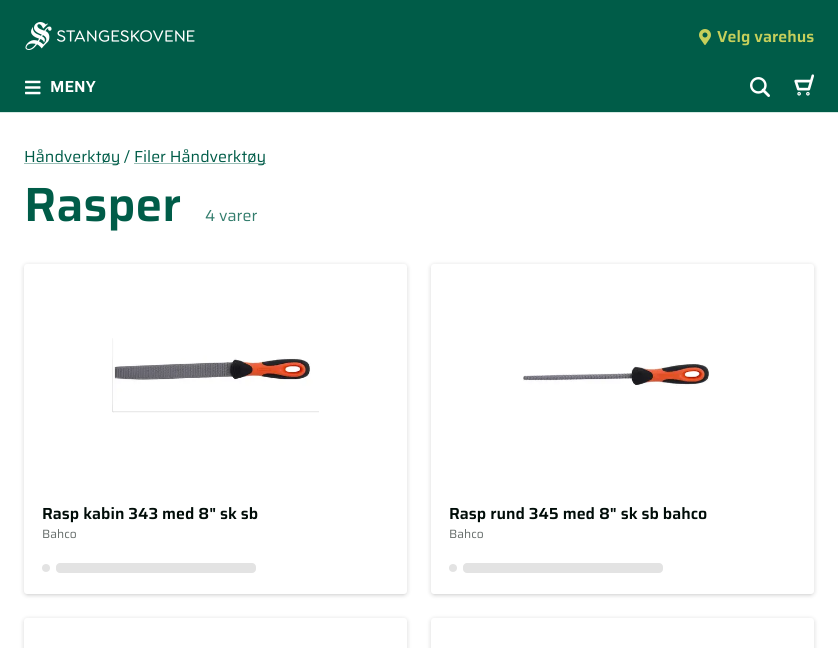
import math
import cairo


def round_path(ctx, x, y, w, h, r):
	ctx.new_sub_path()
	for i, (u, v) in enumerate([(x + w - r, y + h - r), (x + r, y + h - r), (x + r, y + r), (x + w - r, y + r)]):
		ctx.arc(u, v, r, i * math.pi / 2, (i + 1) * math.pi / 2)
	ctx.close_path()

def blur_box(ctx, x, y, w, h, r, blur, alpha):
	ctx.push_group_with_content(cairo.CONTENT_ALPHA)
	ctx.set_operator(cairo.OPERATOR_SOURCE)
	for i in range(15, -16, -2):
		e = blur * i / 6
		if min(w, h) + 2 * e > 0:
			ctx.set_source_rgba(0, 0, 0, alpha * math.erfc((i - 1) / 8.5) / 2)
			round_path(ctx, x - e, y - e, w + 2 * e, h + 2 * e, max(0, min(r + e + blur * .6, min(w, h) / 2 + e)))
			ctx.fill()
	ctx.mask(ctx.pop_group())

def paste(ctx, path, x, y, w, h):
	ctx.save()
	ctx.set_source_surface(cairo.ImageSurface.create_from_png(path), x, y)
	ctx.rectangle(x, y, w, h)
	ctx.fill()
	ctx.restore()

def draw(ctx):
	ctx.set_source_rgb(1, 1, 1)
	ctx.paint()
	ctx.set_source_rgb(0, 0.361, 0.282)
	ctx.rectangle(0, 0, 838, 112)
	ctx.fill()
	ctx.set_source_rgb(0.839, 0.914, 0.89)
	ctx.rectangle(0, 112, 838, 1)
	ctx.fill()
	paste(ctx, 'media/1.png', 25, 22, 170, 28)
	paste(ctx, 'media/2.png', 699, 29, 12, 16)
	ctx.select_font_face('Saira SemiBold')
	ctx.set_font_size(16)
	ctx.set_source_rgb(0.776, 0.812, 0.357)
	ctx.move_to(717, 42)
	ctx.show_text('Velg varehus')
	paste(ctx, 'media/3.png', 25, 80, 16, 15)
	ctx.set_source_rgb(1, 1, 1)
	ctx.move_to(50, 92)
	ctx.show_text('MENY')
	paste(ctx, 'media/4.png', 750, 77, 20, 20)
	paste(ctx, 'media/5.png', 794, 74, 20, 22)
	ctx.set_source_rgb(0.6, 0.745, 0.714)
	ctx.rectangle(24, 163, 96, 1)
	ctx.fill()
	ctx.select_font_face('Saira')
	ctx.set_source_rgb(0, 0.361, 0.282)
	ctx.move_to(24, 162)
	ctx.show_text('Håndverktøy /')
	ctx.set_source_rgb(0.6, 0.745, 0.714)
	ctx.rectangle(134, 163, 132, 1)
	ctx.fill()
	ctx.set_source_rgb(0, 0.361, 0.282)
	ctx.move_to(134, 162)
	ctx.show_text('Filer Håndverktøy')
	ctx.select_font_face('Saira SemiBold')
	ctx.set_font_size(48)
	ctx.move_to(24, 221)
	ctx.show_text('Rasper')
	ctx.select_font_face('Saira')
	ctx.set_font_size(16)
	ctx.set_source_rgb(0.2, 0.49, 0.427)
	ctx.move_to(205, 221)
	ctx.show_text('4 varer')
	ctx.set_source_rgb(0, 0, 0)
	blur_box(ctx, 24, 265, 383, 330, 3, 2.5, 0.15)
	blur_box(ctx, 27, 270, 377, 324, 0, 1.5, 0.1)
	ctx.set_source_rgb(1, 1, 1)
	round_path(ctx, 24, 264, 383, 330, 3)
	ctx.fill()
	paste(ctx, 'media/6.png', 112, 338, 207, 75)
	ctx.select_font_face('Saira SemiBold')
	ctx.set_source_rgb(0, 0.047, 0.035)
	ctx.move_to(42, 519)
	ctx.show_text('Rasp kabin 343 med 8" sk sb')
	ctx.select_font_face('Saira')
	ctx.set_font_size(12)
	ctx.set_source_rgb(0.4, 0.427, 0.42)
	ctx.move_to(42, 538)
	ctx.show_text('Bahco')
	ctx.set_source_rgb(0.89, 0.89, 0.89)
	ctx.new_path()
	ctx.arc(46, 568, 4, 0, 2 * math.pi)
	ctx.fill()
	round_path(ctx, 56, 563, 200, 10, 4)
	ctx.fill()
	ctx.set_source_rgb(0, 0, 0)
	blur_box(ctx, 431, 265, 383, 330, 3, 2.5, 0.15)
	blur_box(ctx, 434, 270, 377, 324, 0, 1.5, 0.1)
	ctx.set_source_rgb(1, 1, 1)
	round_path(ctx, 431, 264, 383, 330, 3)
	ctx.fill()
	paste(ctx, 'media/7.png', 523, 364, 186, 22)
	ctx.select_font_face('Saira SemiBold')
	ctx.set_font_size(16)
	ctx.set_source_rgb(0, 0.047, 0.035)
	ctx.move_to(449, 519)
	ctx.show_text('Rasp rund 345 med 8" sk sb bahco')
	ctx.select_font_face('Saira')
	ctx.set_font_size(12)
	ctx.set_source_rgb(0.4, 0.427, 0.42)
	ctx.move_to(449, 538)
	ctx.show_text('Bahco')
	ctx.set_source_rgb(0.89, 0.89, 0.89)
	ctx.new_path()
	ctx.arc(453, 568, 4, 0, 2 * math.pi)
	ctx.fill()
	round_path(ctx, 463, 563, 200, 10, 4)
	ctx.fill()
	ctx.set_source_rgb(0, 0, 0)
	blur_box(ctx, 24, 619, 383, 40, 3, 2.5, 0.15)
	ctx.set_source_rgb(1, 1, 1)
	round_path(ctx, 24, 618, 383, 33, 3)
	ctx.fill()
	ctx.set_source_rgb(0, 0, 0)
	blur_box(ctx, 431, 619, 383, 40, 3, 2.5, 0.15)
	ctx.set_source_rgb(1, 1, 1)
	round_path(ctx, 431, 618, 383, 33, 3)
	ctx.fill()


surface = cairo.ImageSurface(cairo.FORMAT_RGB24, 838, 648)
ctx = cairo.Context(surface)
options = cairo.FontOptions()
options.set_hint_metrics(cairo.HINT_METRICS_OFF)
options.set_hint_style(cairo.HINT_STYLE_NONE)
ctx.set_font_options(options)
ctx.set_miter_limit(4)
draw(ctx)
surface.write_to_png('image.png')
